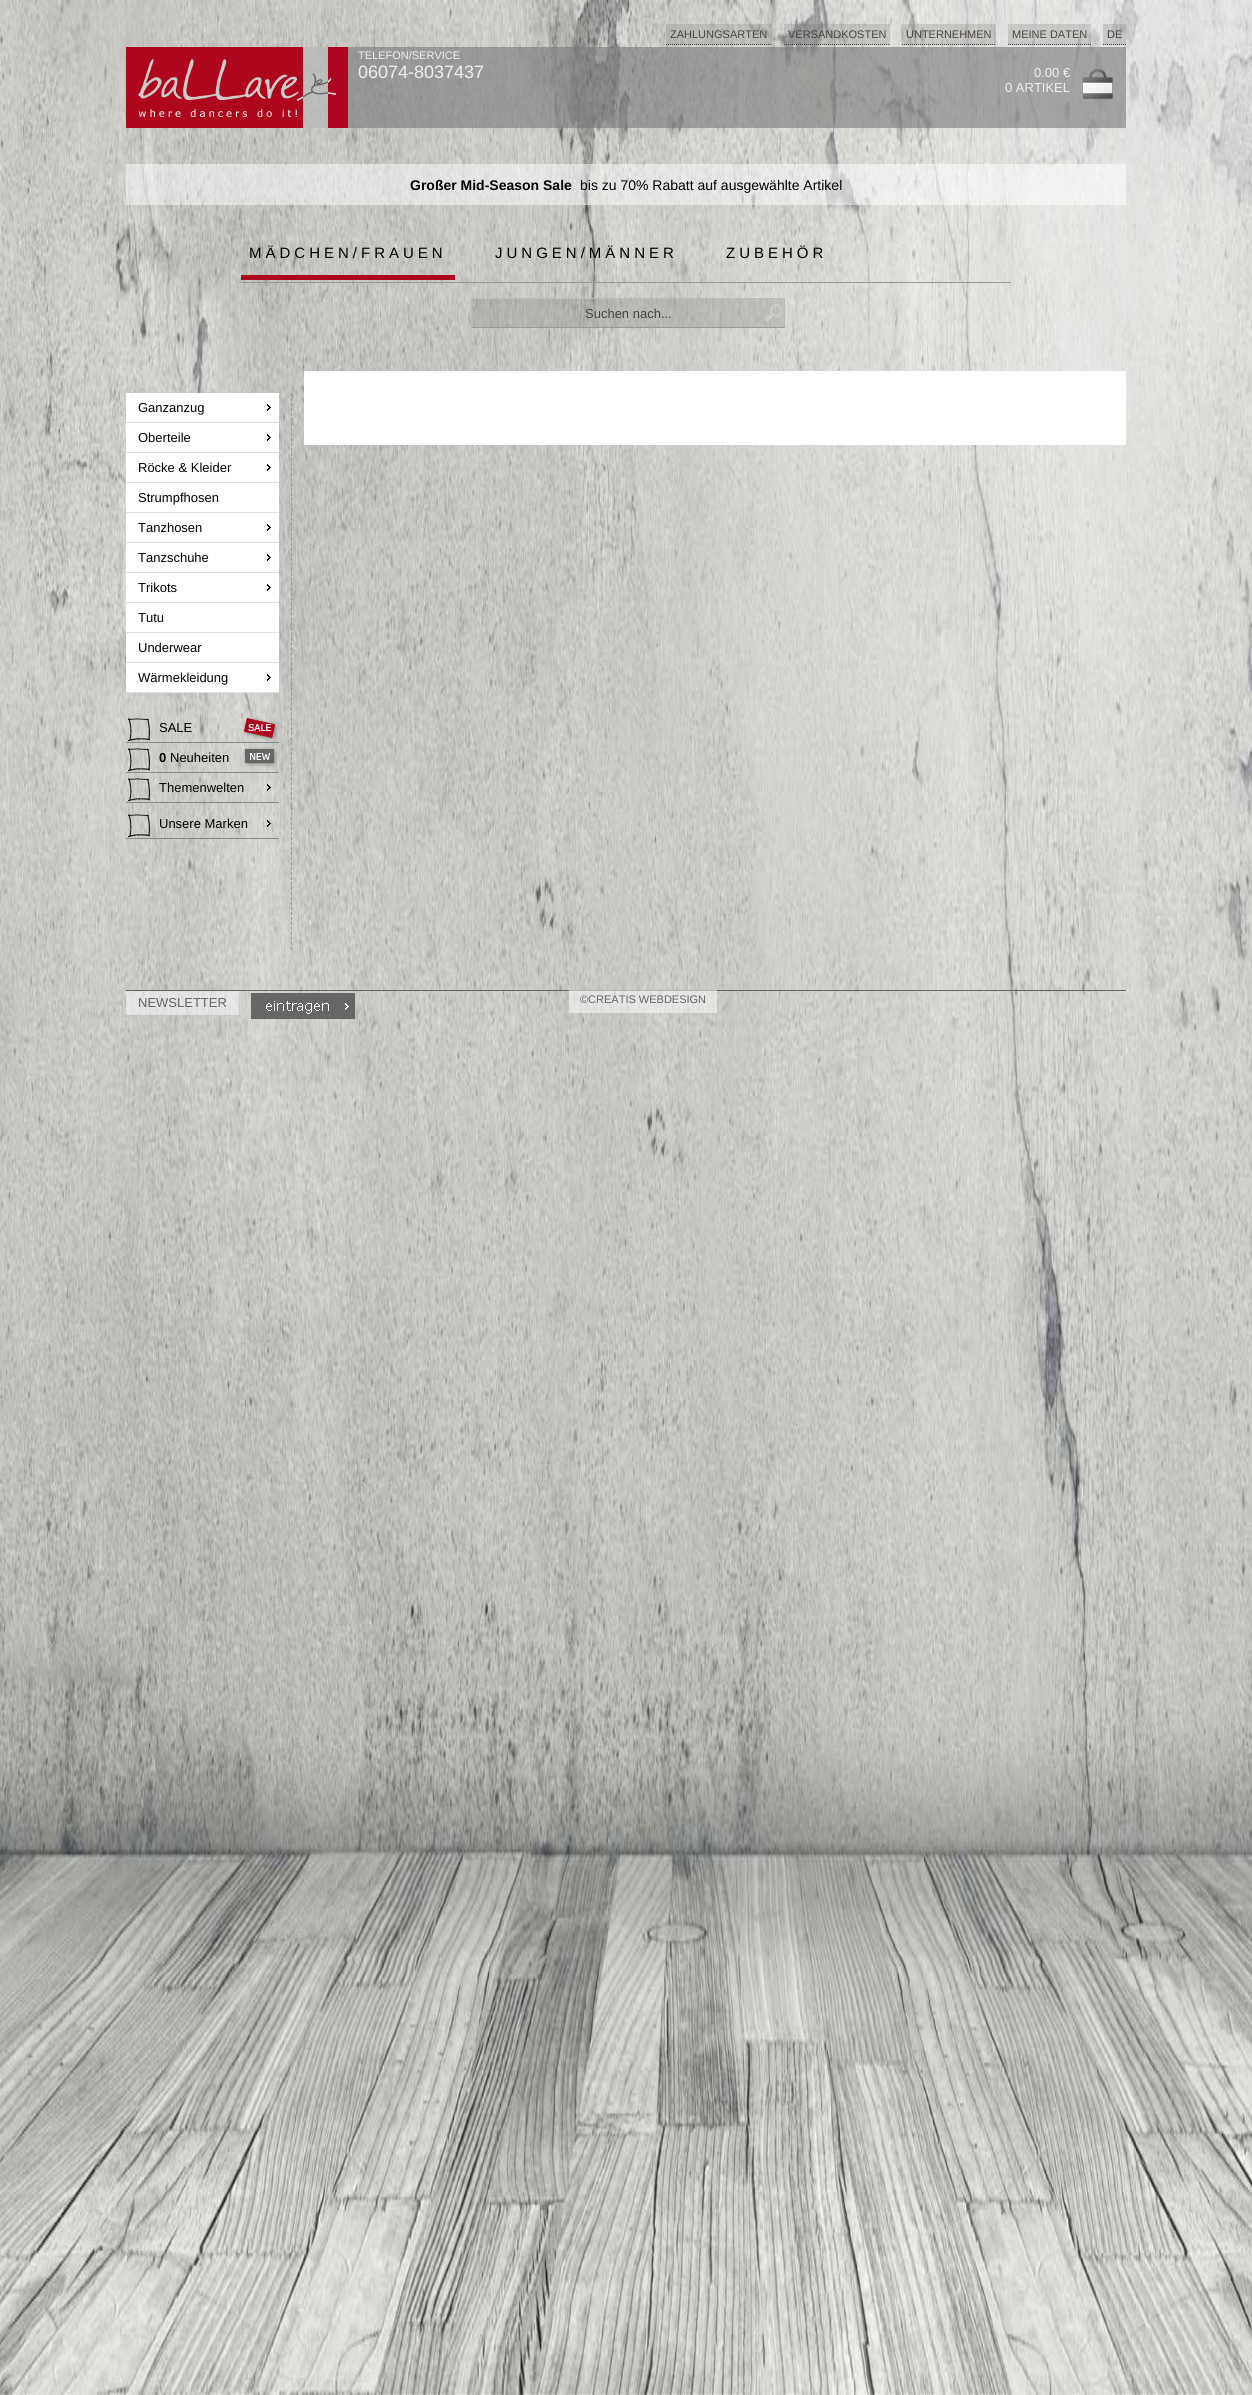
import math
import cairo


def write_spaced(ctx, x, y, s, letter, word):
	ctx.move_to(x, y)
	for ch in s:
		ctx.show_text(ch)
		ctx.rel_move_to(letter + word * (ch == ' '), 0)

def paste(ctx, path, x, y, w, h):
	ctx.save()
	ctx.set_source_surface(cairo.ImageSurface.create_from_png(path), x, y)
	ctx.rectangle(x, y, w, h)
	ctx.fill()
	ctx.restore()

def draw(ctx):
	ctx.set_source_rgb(1, 1, 1)
	ctx.paint()
	paste(ctx, 'media/1.png', 0, 0, 1252, 2395)
	ctx.set_source_rgba(0.471, 0.471, 0.471, 0.25)
	ctx.rectangle(666, 24, 106, 21)
	ctx.fill()
	ctx.new_path()
	ctx.move_to(666, 44.5)
	ctx.line_to(772, 44.5)
	ctx.set_source_rgb(0.267, 0.267, 0.267)
	ctx.set_line_width(1)
	ctx.set_dash([1, 1])
	ctx.stroke()
	ctx.select_font_face('Liberation Sans')
	ctx.set_font_size(11)
	ctx.set_source_rgb(0.298, 0.278, 0.239)
	ctx.move_to(670, 38)
	ctx.show_text('ZAHLUNGSARTEN')
	ctx.set_source_rgba(0.471, 0.471, 0.471, 0.25)
	ctx.rectangle(784, 24, 106, 21)
	ctx.fill()
	ctx.new_path()
	ctx.move_to(784, 44.5)
	ctx.line_to(890, 44.5)
	ctx.set_source_rgb(0.267, 0.267, 0.267)
	ctx.stroke()
	ctx.set_source_rgb(0.298, 0.278, 0.239)
	ctx.move_to(788, 38)
	ctx.show_text('VERSANDKOSTEN')
	ctx.set_source_rgba(0.471, 0.471, 0.471, 0.25)
	ctx.rectangle(902, 24, 94, 21)
	ctx.fill()
	ctx.new_path()
	ctx.move_to(902, 44.5)
	ctx.line_to(996, 44.5)
	ctx.set_source_rgb(0.267, 0.267, 0.267)
	ctx.stroke()
	ctx.set_source_rgb(0.298, 0.278, 0.239)
	ctx.move_to(906, 38)
	ctx.show_text('UNTERNEHMEN')
	ctx.set_source_rgba(0.471, 0.471, 0.471, 0.25)
	ctx.rectangle(1008, 24, 83, 21)
	ctx.fill()
	ctx.new_path()
	ctx.move_to(1008, 44.5)
	ctx.line_to(1091, 44.5)
	ctx.set_source_rgb(0.267, 0.267, 0.267)
	ctx.stroke()
	ctx.set_source_rgb(0.298, 0.278, 0.239)
	ctx.move_to(1012, 38)
	ctx.show_text('MEINE DATEN')
	ctx.set_source_rgba(0.471, 0.471, 0.471, 0.25)
	ctx.rectangle(1103, 24, 23, 21)
	ctx.fill()
	ctx.new_path()
	ctx.move_to(1103, 44.5)
	ctx.line_to(1126, 44.5)
	ctx.set_source_rgb(0.267, 0.267, 0.267)
	ctx.stroke()
	ctx.move_to(1107, 38)
	ctx.show_text('DE')
	ctx.set_source_rgba(0.471, 0.471, 0.471, 0.6)
	ctx.rectangle(138, 47, 988, 81)
	ctx.fill()
	paste(ctx, 'media/2.png', 126, 47, 222, 81)
	ctx.set_source_rgb(0.933, 0.933, 0.933)
	ctx.move_to(358, 59)
	ctx.show_text('TELEFON/SERVICE')
	ctx.set_font_size(18)
	ctx.move_to(358, 78)
	ctx.show_text('06074-8037437')
	ctx.set_font_size(13)
	ctx.move_to(1034, 77)
	ctx.show_text('0.00 €')
	ctx.move_to(1005, 92)
	ctx.show_text('0 ARTIKEL')
	paste(ctx, 'media/3.png', 1082, 69, 31, 31)
	ctx.set_source_rgba(1, 1, 1, 0.5)
	ctx.rectangle(126, 164, 1000, 41)
	ctx.fill()
	ctx.select_font_face('Liberation Sans', cairo.FONT_SLANT_NORMAL, cairo.FONT_WEIGHT_BOLD)
	ctx.set_font_size(14)
	ctx.set_source_rgb(0, 0, 0)
	ctx.move_to(410, 190)
	ctx.show_text('Großer Mid-Season Sale')
	ctx.select_font_face('Liberation Sans')
	ctx.move_to(580, 190)
	ctx.show_text('bis zu 70% Rabatt auf ausgewählte Artikel')
	ctx.set_source_rgb(0.6, 0.6, 0.6)
	ctx.rectangle(241, 282, 770, 1)
	ctx.fill()
	ctx.set_font_size(15)
	ctx.set_source_rgb(0, 0, 0)
	write_spaced(ctx, 249, 258, 'MÄDCHEN/FRAUEN', 4, 0)
	ctx.set_source_rgb(0.682, 0.024, 0.114)
	ctx.rectangle(241, 275, 214, 5)
	ctx.fill()
	ctx.set_source_rgb(0, 0, 0)
	write_spaced(ctx, 495, 258, 'JUNGEN/MÄNNER', 4, 0)
	write_spaced(ctx, 726, 258, 'ZUBEHÖR', 4, 0)
	ctx.set_source_rgba(0.471, 0.471, 0.471, 0.25)
	ctx.rectangle(472, 299, 312, 28)
	ctx.fill()
	paste(ctx, 'media/4.png', 765, 304, 18, 18)
	ctx.set_source_rgb(0.733, 0.733, 0.733)
	ctx.rectangle(471, 298, 314, 1)
	ctx.rectangle(784, 298, 1, 30)
	ctx.fill()
	ctx.set_source_rgb(0.6, 0.6, 0.6)
	ctx.rectangle(471, 327, 314, 1)
	ctx.fill()
	ctx.set_source_rgb(0.733, 0.733, 0.733)
	ctx.rectangle(471, 298, 1, 30)
	ctx.fill()
	ctx.set_font_size(13)
	ctx.set_source_rgb(0.267, 0.267, 0.267)
	ctx.move_to(585, 318)
	ctx.show_text('Suchen nach...')
	ctx.new_path()
	ctx.move_to(291.5, 393)
	ctx.line_to(291.5, 950)
	ctx.set_source_rgb(0.6, 0.6, 0.6)
	ctx.set_dash([3, 1.99])
	ctx.stroke()
	ctx.set_source_rgb(1, 1, 1)
	ctx.rectangle(126, 393, 153, 29)
	ctx.fill()
	ctx.set_source_rgb(0.878, 0.878, 0.878)
	ctx.rectangle(126, 422, 153, 1)
	ctx.fill()
	paste(ctx, 'media/5.png', 267, 404, 4, 7)
	ctx.set_source_rgb(0, 0, 0)
	ctx.move_to(138, 412)
	ctx.show_text('Ganzanzug')
	ctx.set_source_rgb(1, 1, 1)
	ctx.rectangle(126, 423, 153, 29)
	ctx.fill()
	ctx.set_source_rgb(0.878, 0.878, 0.878)
	ctx.rectangle(126, 452, 153, 1)
	ctx.fill()
	paste(ctx, 'media/5.png', 267, 434, 4, 7)
	ctx.set_source_rgb(0, 0, 0)
	ctx.move_to(138, 442)
	ctx.show_text('Oberteile')
	ctx.set_source_rgb(1, 1, 1)
	ctx.rectangle(126, 453, 153, 29)
	ctx.fill()
	ctx.set_source_rgb(0.878, 0.878, 0.878)
	ctx.rectangle(126, 482, 153, 1)
	ctx.fill()
	paste(ctx, 'media/5.png', 267, 464, 4, 7)
	ctx.set_source_rgb(0, 0, 0)
	ctx.move_to(138, 472)
	ctx.show_text('Röcke & Kleider')
	ctx.set_source_rgb(1, 1, 1)
	ctx.rectangle(126, 483, 153, 29)
	ctx.fill()
	ctx.set_source_rgb(0.878, 0.878, 0.878)
	ctx.rectangle(126, 512, 153, 1)
	ctx.fill()
	ctx.set_source_rgb(0, 0, 0)
	ctx.move_to(138, 502)
	ctx.show_text('Strumpfhosen')
	ctx.set_source_rgb(1, 1, 1)
	ctx.rectangle(126, 513, 153, 29)
	ctx.fill()
	ctx.set_source_rgb(0.878, 0.878, 0.878)
	ctx.rectangle(126, 542, 153, 1)
	ctx.fill()
	paste(ctx, 'media/5.png', 267, 524, 4, 7)
	ctx.set_source_rgb(0, 0, 0)
	ctx.move_to(138, 532)
	ctx.show_text('Tanzhosen')
	ctx.set_source_rgb(1, 1, 1)
	ctx.rectangle(126, 543, 153, 29)
	ctx.fill()
	ctx.set_source_rgb(0.878, 0.878, 0.878)
	ctx.rectangle(126, 572, 153, 1)
	ctx.fill()
	paste(ctx, 'media/5.png', 267, 554, 4, 7)
	ctx.set_source_rgb(0, 0, 0)
	ctx.move_to(138, 562)
	ctx.show_text('Tanzschuhe')
	ctx.set_source_rgb(1, 1, 1)
	ctx.rectangle(126, 573, 153, 29)
	ctx.fill()
	ctx.set_source_rgb(0.878, 0.878, 0.878)
	ctx.rectangle(126, 602, 153, 1)
	ctx.fill()
	paste(ctx, 'media/5.png', 267, 584, 4, 7)
	ctx.set_source_rgb(0, 0, 0)
	ctx.move_to(138, 592)
	ctx.show_text('Trikots')
	ctx.set_source_rgb(1, 1, 1)
	ctx.rectangle(126, 603, 153, 29)
	ctx.fill()
	ctx.set_source_rgb(0.878, 0.878, 0.878)
	ctx.rectangle(126, 632, 153, 1)
	ctx.fill()
	ctx.set_source_rgb(0, 0, 0)
	ctx.move_to(138, 622)
	ctx.show_text('Tutu')
	ctx.set_source_rgb(1, 1, 1)
	ctx.rectangle(126, 633, 153, 29)
	ctx.fill()
	ctx.set_source_rgb(0.878, 0.878, 0.878)
	ctx.rectangle(126, 662, 153, 1)
	ctx.fill()
	ctx.set_source_rgb(0, 0, 0)
	ctx.move_to(138, 652)
	ctx.show_text('Underwear')
	ctx.set_source_rgb(1, 1, 1)
	ctx.rectangle(126, 663, 153, 29)
	ctx.fill()
	ctx.set_source_rgb(0.878, 0.878, 0.878)
	ctx.rectangle(126, 692, 153, 1)
	ctx.fill()
	paste(ctx, 'media/5.png', 267, 674, 4, 7)
	ctx.set_source_rgb(0, 0, 0)
	ctx.move_to(138, 682)
	ctx.show_text('Wärmekleidung')
	paste(ctx, 'media/6.png', 243, 716, 36, 26)
	ctx.set_source_rgb(0.533, 0.533, 0.533)
	ctx.rectangle(126, 742, 153, 1)
	ctx.fill()
	paste(ctx, 'media/7.png', 128, 718, 22, 24)
	ctx.set_source_rgb(0, 0, 0)
	ctx.move_to(159, 732)
	ctx.show_text('SALE')
	paste(ctx, 'media/8.png', 243, 747, 35, 20)
	ctx.set_source_rgb(0.533, 0.533, 0.533)
	ctx.rectangle(126, 772, 153, 1)
	ctx.fill()
	paste(ctx, 'media/9.png', 128, 748, 22, 24)
	ctx.select_font_face('Liberation Sans', cairo.FONT_SLANT_NORMAL, cairo.FONT_WEIGHT_BOLD)
	ctx.set_source_rgb(0, 0, 0)
	ctx.move_to(159, 762)
	ctx.show_text('0')
	ctx.select_font_face('Liberation Sans')
	ctx.move_to(170, 762)
	ctx.show_text('Neuheiten')
	ctx.set_source_rgb(0.533, 0.533, 0.533)
	ctx.rectangle(126, 802, 153, 1)
	ctx.fill()
	paste(ctx, 'media/10.png', 267, 784, 4, 7)
	paste(ctx, 'media/11.png', 128, 778, 22, 24)
	ctx.set_source_rgb(0, 0, 0)
	ctx.move_to(159, 792)
	ctx.show_text('Themenwelten')
	ctx.set_source_rgb(0.533, 0.533, 0.533)
	ctx.rectangle(126, 838, 153, 1)
	ctx.fill()
	paste(ctx, 'media/12.png', 267, 820, 4, 7)
	paste(ctx, 'media/13.png', 128, 814, 22, 24)
	ctx.set_source_rgb(0, 0, 0)
	ctx.move_to(159, 828)
	ctx.show_text('Unsere Marken')
	ctx.set_source_rgb(1, 1, 1)
	ctx.rectangle(304, 371, 822, 74)
	ctx.fill()
	ctx.set_source_rgb(0.4, 0.4, 0.4)
	ctx.rectangle(126, 990, 1000, 1)
	ctx.fill()
	ctx.set_source_rgba(1, 1, 1, 0.5)
	ctx.rectangle(126.5, 991.5, 112, 23)
	ctx.fill_preserve()
	ctx.set_source_rgb(0.878, 0.878, 0.878)
	ctx.set_dash([])
	ctx.stroke()
	ctx.set_source_rgb(0.4, 0.4, 0.4)
	ctx.move_to(138, 1007)
	ctx.show_text('NEWSLETTER')
	paste(ctx, 'media/14.png', 251, 993, 104, 26)
	ctx.set_source_rgba(1, 1, 1, 0.5)
	ctx.rectangle(569, 990, 148, 23)
	ctx.fill()
	ctx.set_font_size(11)
	ctx.set_source_rgb(0.4, 0.4, 0.4)
	ctx.move_to(580, 1003)
	ctx.show_text('©CREATIS WEBDESIGN')


surface = cairo.ImageSurface(cairo.FORMAT_RGB24, 1252, 2395)
ctx = cairo.Context(surface)
options = cairo.FontOptions()
options.set_hint_metrics(cairo.HINT_METRICS_OFF)
options.set_hint_style(cairo.HINT_STYLE_NONE)
ctx.set_font_options(options)
ctx.set_miter_limit(4)
draw(ctx)
surface.write_to_png('image.png')
